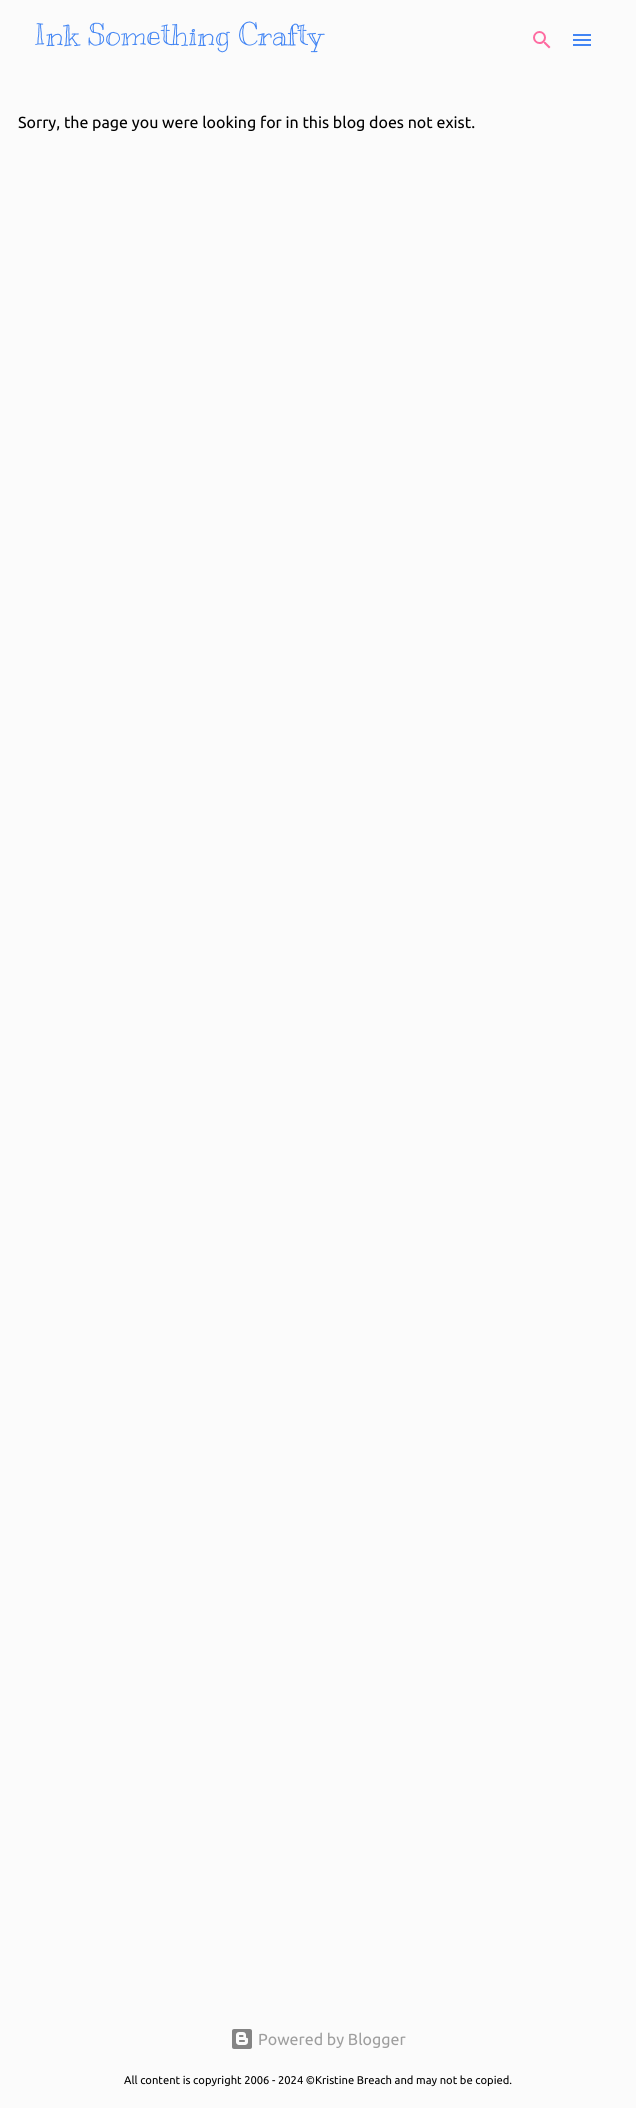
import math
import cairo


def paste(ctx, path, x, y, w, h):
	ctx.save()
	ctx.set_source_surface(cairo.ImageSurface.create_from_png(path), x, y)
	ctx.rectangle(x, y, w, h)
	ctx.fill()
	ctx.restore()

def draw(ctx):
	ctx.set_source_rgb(0.984, 0.984, 0.984)
	ctx.paint()
	ctx.select_font_face('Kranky')
	ctx.set_font_size(30)
	ctx.set_source_rgb(0.259, 0.522, 0.957)
	ctx.move_to(34, 45)
	ctx.show_text('Ink Something Crafty')
	paste(ctx, 'media/1.png', 533, 31, 18, 18)
	paste(ctx, 'media/2.png', 573, 34, 18, 12)
	ctx.select_font_face('Ubuntu')
	ctx.set_font_size(16)
	ctx.set_source_rgb(0, 0, 0)
	ctx.move_to(18, 128)
	ctx.show_text('Sorry, the page you were looking for in this blog does not exist.')
	paste(ctx, 'media/3.png', 232, 2029, 20, 20)
	ctx.set_source_rgb(0.62, 0.62, 0.62)
	ctx.move_to(258, 2045)
	ctx.show_text('Powered by Blogger')
	ctx.set_font_size(11.2)
	ctx.set_source_rgb(0, 0, 0)
	ctx.move_to(124, 2084)
	ctx.show_text('All content is copyright 2006 - 2024 ©Kristine Breach and may not be copied.')


surface = cairo.ImageSurface(cairo.FORMAT_RGB24, 636, 2108)
ctx = cairo.Context(surface)
options = cairo.FontOptions()
options.set_hint_metrics(cairo.HINT_METRICS_OFF)
options.set_hint_style(cairo.HINT_STYLE_NONE)
ctx.set_font_options(options)
ctx.set_miter_limit(4)
draw(ctx)
surface.write_to_png('image.png')
